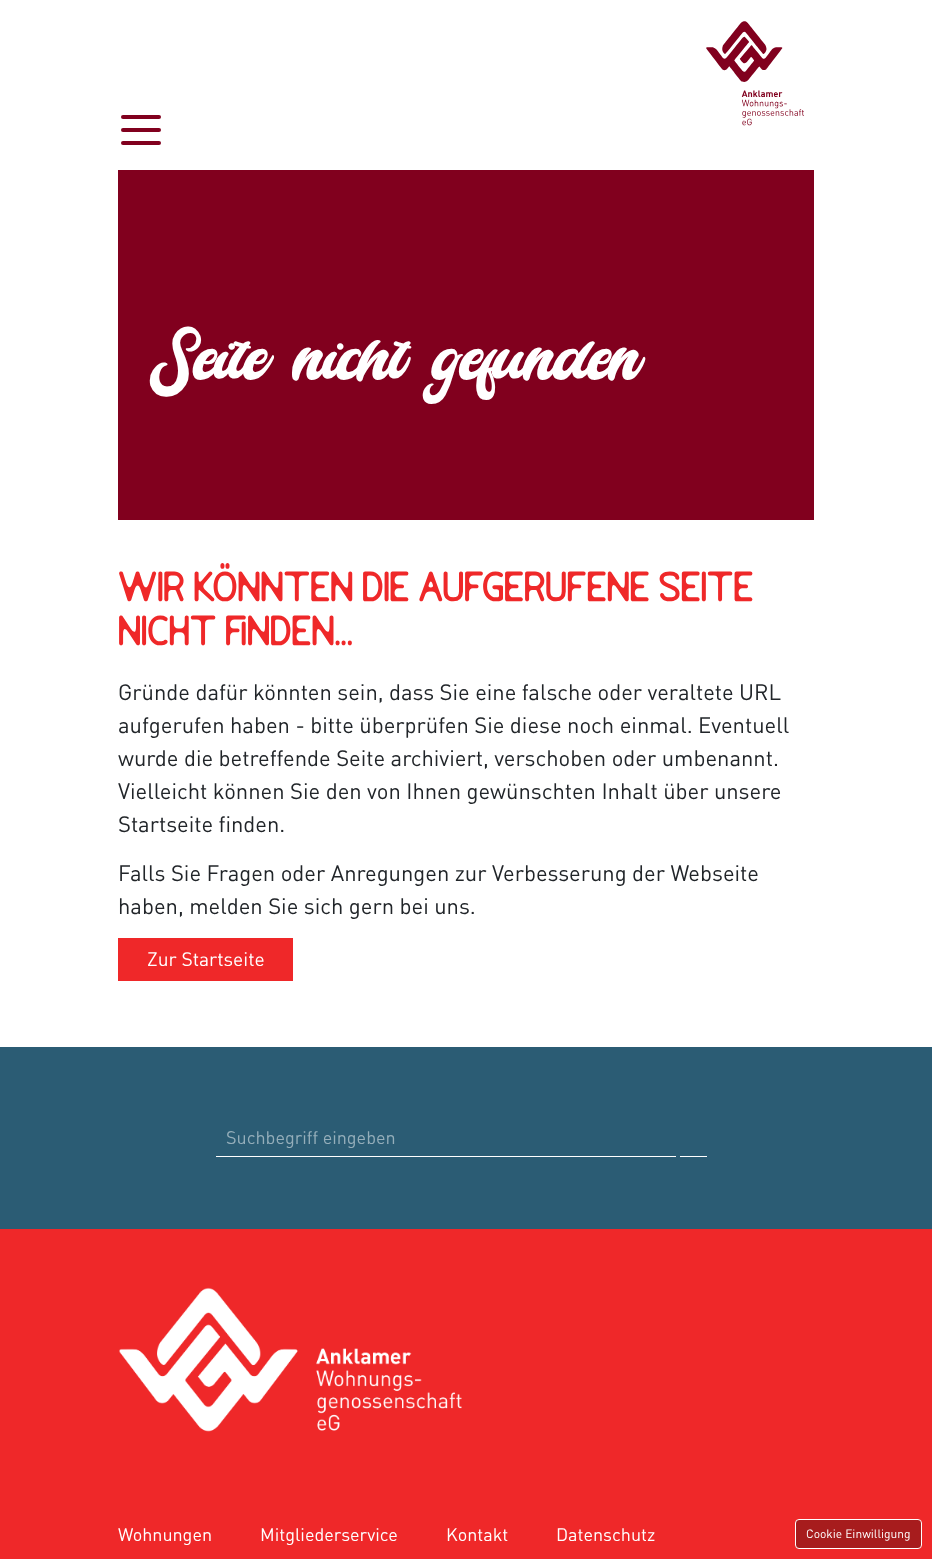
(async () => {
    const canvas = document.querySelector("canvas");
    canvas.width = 932;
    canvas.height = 1559;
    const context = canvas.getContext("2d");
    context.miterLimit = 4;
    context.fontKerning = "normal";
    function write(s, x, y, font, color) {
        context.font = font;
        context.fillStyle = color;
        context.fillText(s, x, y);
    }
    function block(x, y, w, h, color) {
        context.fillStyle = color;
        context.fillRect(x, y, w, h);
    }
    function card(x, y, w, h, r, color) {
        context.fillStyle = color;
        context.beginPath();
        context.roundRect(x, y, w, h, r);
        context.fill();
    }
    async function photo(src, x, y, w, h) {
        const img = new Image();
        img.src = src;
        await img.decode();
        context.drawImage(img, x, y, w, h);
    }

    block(0, 0, 932, 1559, "rgb(255, 255, 255)");
    await photo("media/1.png", 706, 21, 98, 105);
    card(121, 115, 40, 4, 2, "rgb(129, 0, 30)");
    card(121, 128, 40, 4, 2, "rgb(129, 0, 30)");
    card(121, 141, 40, 4, 2, "rgb(129, 0, 30)");
    block(118, 170, 696, 350, "rgb(129, 0, 30)");
    write("Seite nicht gefunden", 148, 380, "56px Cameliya", "rgb(255, 255, 255)");
    write("Wir könnten die aufgerufene Seite", 118, 600, "36.5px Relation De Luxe", "rgb(239, 40, 41)");
    write("nicht finden...", 118, 644, "36.5px Relation De Luxe", "rgb(239, 40, 41)");
    write("Gründe dafür könnten sein, dass Sie eine falsche oder veraltete URL", 118, 700, "22px DIN", "rgb(33, 37, 41)");
    write("aufgerufen haben - bitte überprüfen Sie diese noch einmal. Eventuell", 118, 733, "22px DIN", "rgb(33, 37, 41)");
    write("wurde die betreffende Seite archiviert, verschoben oder umbenannt.", 118, 766, "22px DIN", "rgb(33, 37, 41)");
    write("Vielleicht können Sie den von Ihnen gewünschten Inhalt über unsere", 118, 799, "22px DIN", "rgb(33, 37, 41)");
    write("Startseite finden.", 118, 832, "22px DIN", "rgb(33, 37, 41)");
    write("Falls Sie Fragen oder Anregungen zur Verbesserung der Webseite", 118, 881, "22px DIN", "rgb(33, 37, 41)");
    write("haben, melden Sie sich gern bei uns.", 118, 914, "22px DIN", "rgb(33, 37, 41)");
    block(118, 938, 175, 43, "rgb(239, 40, 41)");
    write("Zur Startseite", 147, 966, "19.25px DIN", "rgb(255, 255, 255)");
    block(0, 1047, 932, 182, "rgb(43, 92, 116)");
    block(216, 1156, 460, 1, "rgb(255, 255, 255)");
    write("Suchbegriff eingeben", 226, 1144, "18px DIN", "rgb(149, 174, 186)");
    block(680, 1156, 27, 1, "rgb(255, 255, 255)");
    block(0, 1229, 932, 330, "rgb(239, 40, 41)");
    await photo("media/2.png", 119, 1287, 343, 145);
    write("Wohnungen", 118, 1541, "18px DIN", "rgb(255, 255, 255)");
    write("Mitgliederservice", 260, 1541, "18px DIN", "rgb(255, 255, 255)");
    write("Kontakt", 446, 1541, "18px DIN", "rgb(255, 255, 255)");
    write("Datenschutz", 556, 1541, "18px DIN", "rgb(255, 255, 255)");
    context.fillStyle = "rgb(167, 28, 29)";
    context.beginPath();
    context.roundRect(795.5, 1519.5, 126, 29, 3.5);
    context.fill();
    context.strokeStyle = "rgb(255, 255, 255)";
    context.stroke();
    write("Cookie Einwilligung", 806, 1538, "12px DIN", "rgb(255, 255, 255)");
})();
